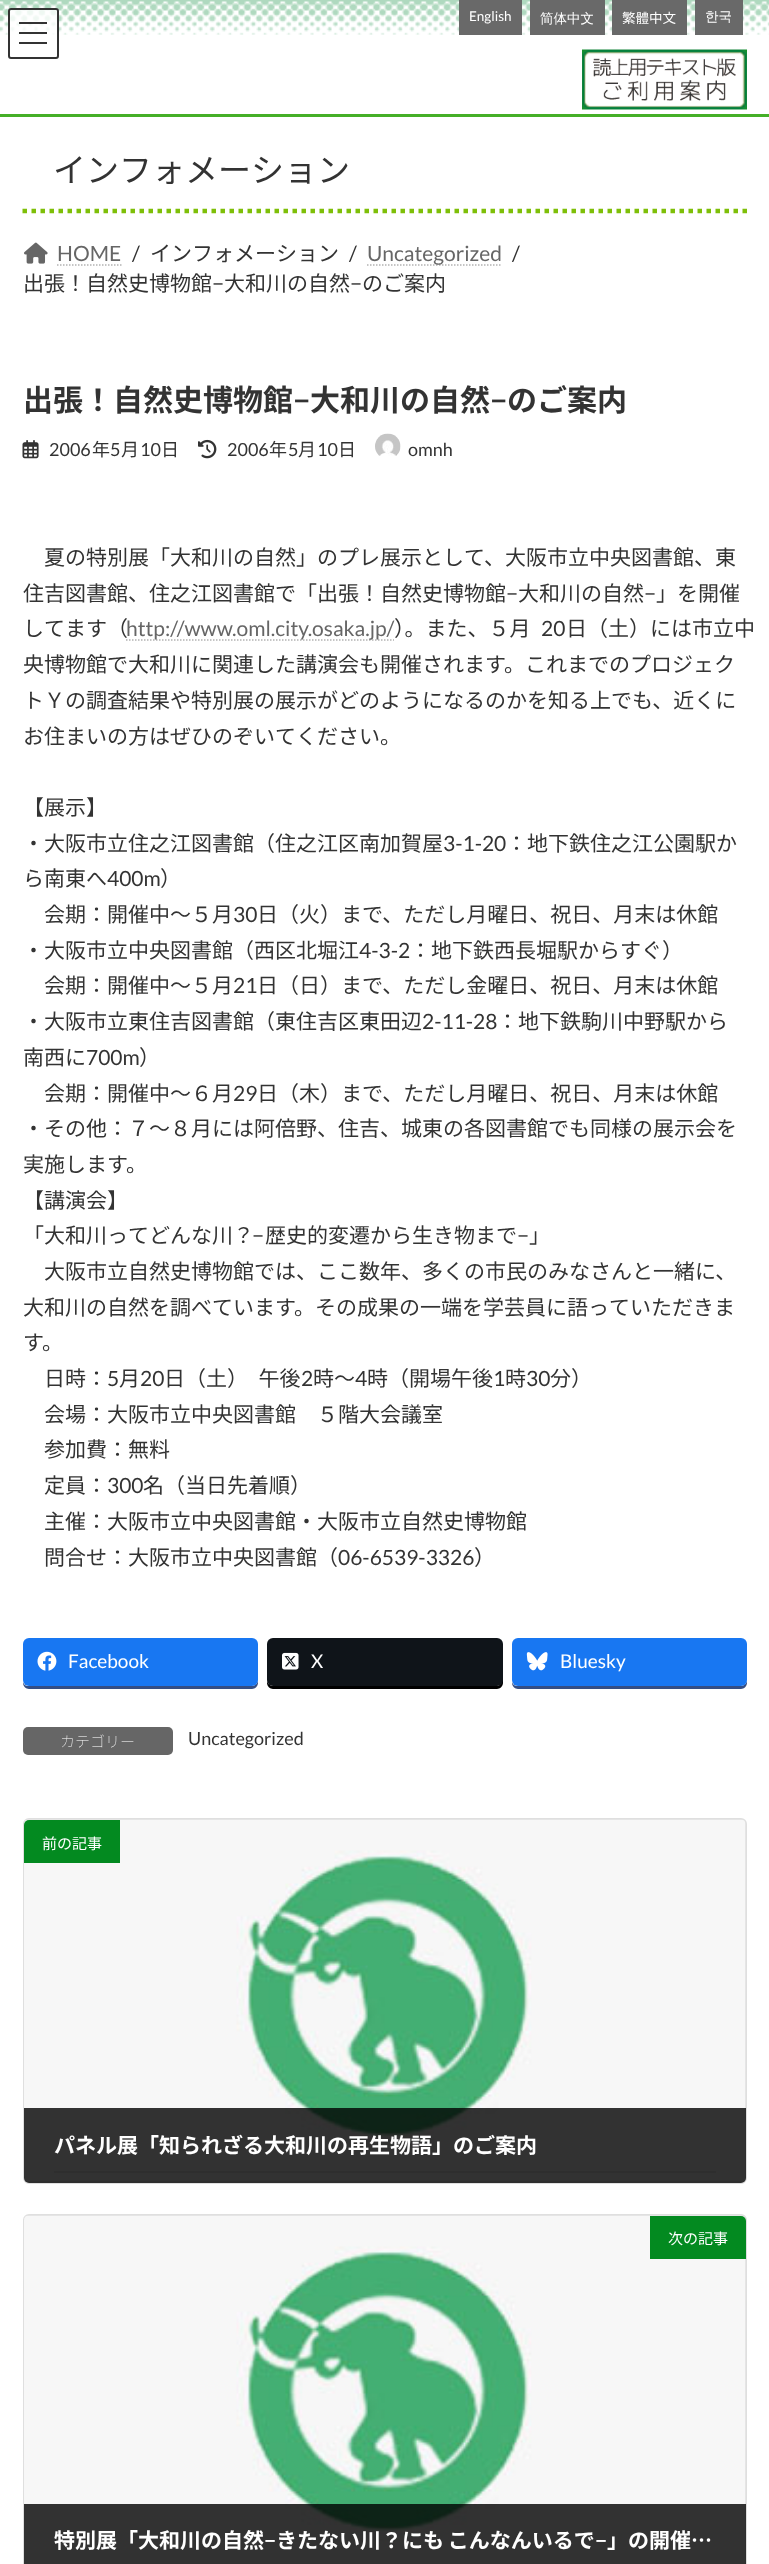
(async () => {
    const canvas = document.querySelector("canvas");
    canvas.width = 769;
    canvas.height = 2564;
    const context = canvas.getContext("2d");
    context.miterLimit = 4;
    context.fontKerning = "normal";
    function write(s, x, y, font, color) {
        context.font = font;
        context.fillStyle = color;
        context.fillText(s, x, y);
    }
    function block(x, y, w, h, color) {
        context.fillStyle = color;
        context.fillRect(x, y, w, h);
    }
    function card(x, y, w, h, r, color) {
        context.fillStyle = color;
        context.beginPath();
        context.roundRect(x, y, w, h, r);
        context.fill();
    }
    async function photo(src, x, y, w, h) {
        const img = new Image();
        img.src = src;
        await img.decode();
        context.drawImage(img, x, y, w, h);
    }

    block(0, 0, 769, 2564, "rgb(255, 255, 255)");
    await photo("media/1.png", 0, 0, 769, 35);
    card(8, 8, 51, 51, 3, "rgba(255, 255, 255, 0.8)");
    block(19, 22, 28, 2, "rgba(0, 0, 0, 0.8)");
    block(19, 32, 28, 2, "rgba(0, 0, 0, 0.8)");
    block(19, 42, 28, 2, "rgb(51, 51, 51)");
    context.beginPath();
    context.roundRect(9, 9, 49, 49, 2);
    context.strokeStyle = "rgb(51, 51, 51)";
    context.lineWidth = 2;
    context.stroke();
    block(459, 0, 63, 35, "rgb(105, 105, 105)");
    write("English", 469, 21, "13.5px Lato", "rgb(255, 255, 255)");
    block(530, 0, 75, 35, "rgb(105, 105, 105)");
    write("简体中文", 540, 23, "500 13.5px WenQuanYi Zen Hei", "rgb(255, 255, 255)");
    block(612, 0, 75, 35, "rgb(105, 105, 105)");
    write("繁體中文", 622, 23, "13.5px Noto Sans JP", "rgb(255, 255, 255)");
    block(695, 0, 48, 35, "rgb(105, 105, 105)");
    write("한국", 705, 21, "500 13.5px WenQuanYi Zen Hei", "rgb(255, 255, 255)");
    block(0, 114, 769, 3, "rgb(69, 175, 39)");
    await photo("media/2.png", 582, 49, 165, 61);
    context.beginPath();
    context.moveTo(22.5, 211);
    context.lineTo(747, 211);
    context.strokeStyle = "rgb(126, 191, 8)";
    context.lineWidth = 4.5;
    context.setLineDash([4.5, 4.5]);
    context.stroke();
    write("インフォメーション", 53, 182, "33px Noto Sans JP", "rgb(51, 51, 51)");
    await photo("media/3.png", 24, 242, 24, 22);
    write("HOME", 57, 261, "21px Lato", "rgb(102, 102, 102)");
    context.beginPath();
    context.moveTo(57, 265);
    context.lineTo(121.5, 265);
    context.strokeStyle = "rgb(179, 179, 179)";
    context.lineWidth = 1.5;
    context.setLineDash([1.5, 1.5]);
    context.stroke();
    write("/", 132, 261, "21px Lato", "rgb(51, 51, 51)");
    write("インフォメーション", 150, 261, "21px Noto Sans JP", "rgb(51, 51, 51)");
    write("/", 349, 261, "21px Lato", "rgb(51, 51, 51)");
    context.beginPath();
    context.moveTo(367, 265);
    context.lineTo(502, 265);
    context.stroke();
    write("Uncategorized", 367, 261, "21px Lato", "rgb(102, 102, 102)");
    write("/", 512, 261, "21px Lato", "rgb(51, 51, 51)");
    write("出張！自然史博物館", 23, 291, "21px Noto Sans JP", "rgb(51, 51, 51)");
    write("−", 212, 291, "21px Lato", "rgb(51, 51, 51)");
    write("大和川の自然", 224, 291, "21px Noto Sans JP", "rgb(51, 51, 51)");
    write("−", 350, 291, "21px Lato", "rgb(51, 51, 51)");
    write("のご案内", 362, 291, "21px Noto Sans JP", "rgb(51, 51, 51)");
    write("出張！自然史博物館", 23, 411, "bold 30px Noto Sans JP", "rgb(51, 51, 51)");
    write("−", 293, 411, "bold 30px Lato", "rgb(51, 51, 51)");
    write("大和川の自然", 310, 411, "bold 30px Noto Sans JP", "rgb(51, 51, 51)");
    write("−", 490, 411, "bold 30px Lato", "rgb(51, 51, 51)");
    write("のご案内", 507, 411, "bold 30px Noto Sans JP", "rgb(51, 51, 51)");
    await photo("media/4.png", 22, 440, 17, 19);
    write("2006", 49, 456, "18px Lato", "rgb(51, 51, 51)");
    write("年", 92, 456, "18px Noto Sans JP", "rgb(51, 51, 51)");
    write("5", 110, 456, "18px Lato", "rgb(51, 51, 51)");
    write("月", 121, 456, "18px Noto Sans JP", "rgb(51, 51, 51)");
    write("10", 140, 456, "18px Lato", "rgb(51, 51, 51)");
    write("日", 161, 456, "18px Noto Sans JP", "rgb(51, 51, 51)");
    await photo("media/5.png", 198, 439, 19, 20);
    write("2006", 227, 456, "18px Lato", "rgb(51, 51, 51)");
    write("年", 269, 456, "18px Noto Sans JP", "rgb(51, 51, 51)");
    write("5", 288, 456, "18px Lato", "rgb(51, 51, 51)");
    write("月", 298, 456, "18px Noto Sans JP", "rgb(51, 51, 51)");
    write("10", 317, 456, "18px Lato", "rgb(51, 51, 51)");
    write("日", 338, 456, "18px Noto Sans JP", "rgb(51, 51, 51)");
    await photo("media/6.png", 375, 433, 26, 23);
    write("omnh", 408, 456, "18px Lato", "rgb(51, 51, 51)");
    write("夏の特別展「大和川の自然」のプレ展示として、大阪市立中央図書館、東", 44, 565, "21px Noto Sans JP", "rgb(51, 51, 51)");
    write("住吉図書館、住之江図書館で「出張！自然史博物館", 23, 601, "21px Noto Sans JP", "rgb(51, 51, 51)");
    write("−", 506, 601, "21px Lato", "rgb(51, 51, 51)");
    write("大和川の自然", 518, 601, "21px Noto Sans JP", "rgb(51, 51, 51)");
    write("−", 644, 601, "21px Lato", "rgb(51, 51, 51)");
    write("」を開催", 656, 601, "21px Noto Sans JP", "rgb(51, 51, 51)");
    write("してます（", 23, 636, "21px Noto Sans JP", "rgb(51, 51, 51)");
    context.beginPath();
    context.moveTo(126, 640);
    context.lineTo(394, 640);
    context.stroke();
    write("http://www.oml.city.osaka.jp/", 126, 636, "21px Lato", "rgb(102, 102, 102)");
    write("）。また、５月", 394, 636, "21px Noto Sans JP", "rgb(51, 51, 51)");
    write("20", 541, 636, "21px Lato", "rgb(51, 51, 51)");
    write("日（土）には市立中", 566, 636, "21px Noto Sans JP", "rgb(51, 51, 51)");
    write("央博物館で大和川に関連した講演会も開催されます。これまでのプロジェク", 23, 672, "21px Noto Sans JP", "rgb(51, 51, 51)");
    write("トＹの調査結果や特別展の展示がどのようになるのかを知る上でも、近くに", 23, 708, "21px Noto Sans JP", "rgb(51, 51, 51)");
    write("お住まいの方はぜひのぞいてください。", 23, 744, "21px Noto Sans JP", "rgb(51, 51, 51)");
    write("【展示】", 23, 815, "21px Noto Sans JP", "rgb(51, 51, 51)");
    write("・大阪市立住之江図書館（住之江区南加賀屋", 23, 851, "21px Noto Sans JP", "rgb(51, 51, 51)");
    write("3-1-20", 443, 851, "21px Lato", "rgb(51, 51, 51)");
    write("：地下鉄住之江公園駅か", 506, 851, "21px Noto Sans JP", "rgb(51, 51, 51)");
    write("ら南東へ", 23, 886, "21px Noto Sans JP", "rgb(51, 51, 51)");
    write("400m", 107, 886, "21px Lato", "rgb(51, 51, 51)");
    write("）", 160, 886, "21px Noto Sans JP", "rgb(51, 51, 51)");
    write("会期：開催中〜５月", 44, 922, "21px Noto Sans JP", "rgb(51, 51, 51)");
    write("30", 233, 922, "21px Lato", "rgb(51, 51, 51)");
    write("日（火）まで、ただし月曜日、祝日、月末は休館", 257, 922, "21px Noto Sans JP", "rgb(51, 51, 51)");
    write("・大阪市立中央図書館（西区北堀江", 23, 958, "21px Noto Sans JP", "rgb(51, 51, 51)");
    write("4-3-2", 359, 958, "21px Lato", "rgb(51, 51, 51)");
    write("：地下鉄西長堀駅からすぐ）", 410, 958, "21px Noto Sans JP", "rgb(51, 51, 51)");
    write("会期：開催中〜５月", 44, 993, "21px Noto Sans JP", "rgb(51, 51, 51)");
    write("21", 233, 993, "21px Lato", "rgb(51, 51, 51)");
    write("日（日）まで、ただし金曜日、祝日、月末は休館", 257, 993, "21px Noto Sans JP", "rgb(51, 51, 51)");
    write("・大阪市立東住吉図書館（東住吉区東田辺", 23, 1029, "21px Noto Sans JP", "rgb(51, 51, 51)");
    write("2-11-28", 422, 1029, "21px Lato", "rgb(51, 51, 51)");
    write("：地下鉄駒川中野駅から", 497, 1029, "21px Noto Sans JP", "rgb(51, 51, 51)");
    write("南西に", 23, 1065, "21px Noto Sans JP", "rgb(51, 51, 51)");
    write("700m", 86, 1065, "21px Lato", "rgb(51, 51, 51)");
    write("）", 139, 1065, "21px Noto Sans JP", "rgb(51, 51, 51)");
    write("会期：開催中〜６月", 44, 1101, "21px Noto Sans JP", "rgb(51, 51, 51)");
    write("29", 233, 1101, "21px Lato", "rgb(51, 51, 51)");
    write("日（木）まで、ただし月曜日、祝日、月末は休館", 257, 1101, "21px Noto Sans JP", "rgb(51, 51, 51)");
    write("・その他：７〜８月には阿倍野、住吉、城東の各図書館でも同様の展示会を", 23, 1136, "21px Noto Sans JP", "rgb(51, 51, 51)");
    write("実施します。", 23, 1172, "21px Noto Sans JP", "rgb(51, 51, 51)");
    write("【講演会】", 23, 1208, "21px Noto Sans JP", "rgb(51, 51, 51)");
    write("「大和川ってどんな川？", 23, 1243, "21px Noto Sans JP", "rgb(51, 51, 51)");
    write("−", 252, 1243, "21px Lato", "rgb(51, 51, 51)");
    write("歴史的変遷から生き物まで", 265, 1243, "21px Noto Sans JP", "rgb(51, 51, 51)");
    write("−", 517, 1243, "21px Lato", "rgb(51, 51, 51)");
    write("」", 529, 1243, "21px Noto Sans JP", "rgb(51, 51, 51)");
    write("大阪市立自然史博物館では、ここ数年、多くの市民のみなさんと一緒に、", 44, 1279, "21px Noto Sans JP", "rgb(51, 51, 51)");
    write("大和川の自然を調べています。その成果の一端を学芸員に語っていただきま", 23, 1315, "21px Noto Sans JP", "rgb(51, 51, 51)");
    write("す。", 23, 1350, "21px Noto Sans JP", "rgb(51, 51, 51)");
    write("日時：", 44, 1386, "21px Noto Sans JP", "rgb(51, 51, 51)");
    write("5", 107, 1386, "21px Lato", "rgb(51, 51, 51)");
    write("月", 119, 1386, "21px Noto Sans JP", "rgb(51, 51, 51)");
    write("20", 140, 1386, "21px Lato", "rgb(51, 51, 51)");
    write("日（土）　午後", 164, 1386, "21px Noto Sans JP", "rgb(51, 51, 51)");
    write("2", 301, 1386, "21px Lato", "rgb(51, 51, 51)");
    write("時〜", 313, 1386, "21px Noto Sans JP", "rgb(51, 51, 51)");
    write("4", 355, 1386, "21px Lato", "rgb(51, 51, 51)");
    write("時（開場午後", 367, 1386, "21px Noto Sans JP", "rgb(51, 51, 51)");
    write("1", 493, 1386, "21px Lato", "rgb(51, 51, 51)");
    write("時", 505, 1386, "21px Noto Sans JP", "rgb(51, 51, 51)");
    write("30", 526, 1386, "21px Lato", "rgb(51, 51, 51)");
    write("分）", 550, 1386, "21px Noto Sans JP", "rgb(51, 51, 51)");
    write("会場：大阪市立中央図書館　５階大会議室", 44, 1422, "21px Noto Sans JP", "rgb(51, 51, 51)");
    write("参加費：無料", 44, 1457, "21px Noto Sans JP", "rgb(51, 51, 51)");
    write("定員：", 44, 1493, "21px Noto Sans JP", "rgb(51, 51, 51)");
    write("300", 107, 1493, "21px Lato", "rgb(51, 51, 51)");
    write("名（当日先着順）", 143, 1493, "21px Noto Sans JP", "rgb(51, 51, 51)");
    write("主催：大阪市立中央図書館・大阪市立自然史博物館", 44, 1529, "21px Noto Sans JP", "rgb(51, 51, 51)");
    write("問合せ：大阪市立中央図書館（", 44, 1565, "21px Noto Sans JP", "rgb(51, 51, 51)");
    write("06-6539-3326", 338, 1565, "21px Lato", "rgb(51, 51, 51)");
    write("）", 474, 1565, "21px Noto Sans JP", "rgb(51, 51, 51)");
    context.fillStyle = "rgb(52, 78, 132)";
    context.beginPath();
    context.moveTo(23, 1682);
    context.lineTo(23, 1683);
    context.bezierCurveTo(23, 1686, 26, 1689, 29, 1689);
    context.lineTo(252, 1689);
    context.bezierCurveTo(255, 1689, 258, 1686, 258, 1683);
    context.lineTo(258, 1680);
    context.bezierCurveTo(258, 1683, 255, 1686, 252, 1686);
    context.lineTo(28, 1686);
    context.bezierCurveTo(26, 1686, 24, 1685, 23, 1682);
    context.closePath();
    context.fill();
    card(23, 1638, 235, 48, 6, "rgb(24, 119, 242)");
    await photo("media/7.png", 37, 1651, 20, 20);
    write("Facebook", 68, 1668, "19px Lato", "rgb(255, 255, 255)");
    context.fillStyle = "rgb(0, 0, 0)";
    context.beginPath();
    context.moveTo(267, 1680);
    context.lineTo(267, 1683);
    context.bezierCurveTo(267, 1686, 270, 1689, 273, 1689);
    context.lineTo(497, 1689);
    context.bezierCurveTo(500, 1689, 503, 1686, 503, 1683);
    context.lineTo(503, 1647);
    context.lineTo(502, 1645);
    context.lineTo(502, 1680);
    context.bezierCurveTo(502, 1683, 500, 1686, 496, 1686);
    context.lineTo(273, 1686);
    context.bezierCurveTo(270, 1686, 267, 1683, 267, 1680);
    context.closePath();
    context.fill();
    card(267, 1638, 236, 48, 6, "rgb(15, 20, 25)");
    await photo("media/8.png", 282, 1652, 17, 18);
    write("X", 311, 1668, "19px Lato", "rgb(255, 255, 255)");
    context.fillStyle = "rgb(52, 78, 132)";
    context.beginPath();
    context.moveTo(512, 1682);
    context.lineTo(512, 1683);
    context.bezierCurveTo(512, 1686, 515, 1689, 518, 1689);
    context.lineTo(741, 1689);
    context.bezierCurveTo(744, 1689, 747, 1686, 747, 1683);
    context.lineTo(747, 1680);
    context.bezierCurveTo(747, 1683, 744, 1686, 741, 1686);
    context.lineTo(518, 1686);
    context.bezierCurveTo(515, 1686, 513, 1685, 512, 1682);
    context.closePath();
    context.fill();
    card(512, 1638, 235, 48, 6, "rgb(24, 119, 242)");
    await photo("media/9.png", 526, 1652, 22, 19);
    write("Bluesky", 560, 1668, "19px Lato", "rgb(255, 255, 255)");
    card(23, 1727, 150, 28, 5, "rgb(102, 102, 102)");
    write("カテゴリー", 60, 1747, "100 15px Noto Sans JP", "rgb(255, 255, 255)");
    write("Uncategorized", 188, 1745, "18px Lato", "rgb(51, 51, 51)");
    context.beginPath();
    context.roundRect(24, 1819, 722, 364, 5);
    context.strokeStyle = "rgb(223, 223, 223)";
    context.lineWidth = 2;
    context.setLineDash([]);
    context.stroke();
    await photo("media/10.png", 24, 1819, 722, 364);
    context.save();
    context.beginPath();
    context.roundRect(24, 1820, 722, 363, 5);
    context.clip();
    block(24, 2181, 722, 2, "rgb(229, 229, 229)");
    context.restore();
    context.fillStyle = "rgb(3, 138, 32)";
    context.beginPath();
    context.roundRect(24, 1820, 96, 43, [5, 0, 0, 0]);
    context.fill();
    write("前の記事", 42, 1849, "15px Noto Sans JP", "rgb(255, 255, 255)");
    context.fillStyle = "rgba(0, 0, 0, 0.8)";
    context.beginPath();
    context.roundRect(24, 2108, 722, 75, [0, 0, 5, 5]);
    context.fill();
    block(54, 2171, 662, 2, "rgb(46, 46, 46)");
    write("パネル展「知られざる大和川の再生物語」のご案内", 54, 2153, "bold 21px Noto Sans JP", "rgb(255, 255, 255)");
    context.beginPath();
    context.roundRect(24, 2215, 722, 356, 5);
    context.stroke();
    await photo("media/11.png", 24, 2215, 722, 349);
    context.fillStyle = "rgb(3, 138, 32)";
    context.beginPath();
    context.roundRect(650, 2216, 96, 43, [0, 5, 0, 0]);
    context.fill();
    write("次の記事", 668, 2244, "15px Noto Sans JP", "rgb(255, 255, 255)");
    block(24, 2504, 722, 60, "rgba(0, 0, 0, 0.8)");
    write("特別展「大和川の自然", 54, 2548, "bold 21px Noto Sans JP", "rgb(255, 255, 255)");
    write("−", 264, 2548, "bold 21px Lato", "rgb(255, 255, 255)");
    context.wordSpacing = "-1px";
    write("きたない川？にも こんなんいるで", 276, 2548, "bold 21px Noto Sans JP", "rgb(255, 255, 255)");
    context.wordSpacing = "0px";
    write("−", 595, 2548, "bold 21px Lato", "rgb(255, 255, 255)");
    write("」の開催…", 607, 2548, "bold 21px Noto Sans JP", "rgb(255, 255, 255)");
})();
